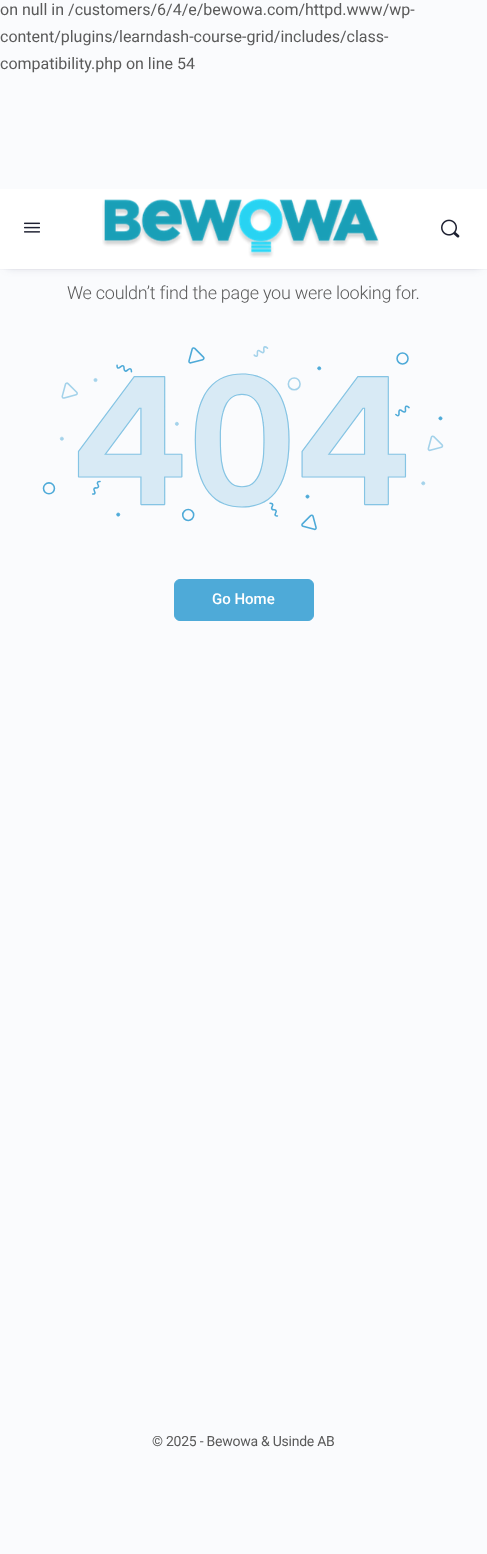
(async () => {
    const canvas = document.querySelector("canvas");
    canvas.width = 487;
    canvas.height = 1554;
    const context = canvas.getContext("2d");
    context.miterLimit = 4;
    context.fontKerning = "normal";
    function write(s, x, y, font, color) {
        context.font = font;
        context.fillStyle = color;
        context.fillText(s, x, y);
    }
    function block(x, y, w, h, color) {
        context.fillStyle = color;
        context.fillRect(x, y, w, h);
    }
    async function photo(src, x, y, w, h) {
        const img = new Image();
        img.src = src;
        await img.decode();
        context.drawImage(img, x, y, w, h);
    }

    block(0, 0, 487, 1554, "rgb(250, 251, 253)");
    write("on null in /customers/6/4/e/bewowa.com/httpd.www/wp-", 0, 15, "16px Roboto", "rgb(90, 90, 90)");
    write("content/plugins/learndash-course-grid/includes/class-", 0, 42, "16px Roboto", "rgb(90, 90, 90)");
    write("compatibility.php on line 54", 0, 69, "16px Roboto", "rgb(90, 90, 90)");
    context.fillStyle = "rgba(65, 71, 108, 0.25)";
    context.filter = "blur(5px)";
    context.beginPath();
    context.rect(7, 201, 473, 66);
    context.fill();
    context.filter = "none";
    block(0, 269, 487, 1, "rgba(139, 141, 157, 0.05)");
    block(0, 189, 487, 80, "rgb(255, 255, 255)");
    await photo("media/1.png", 24, 222, 16, 11);
    await photo("media/2.png", 102, 198, 277, 60);
    await photo("media/3.png", 441, 219, 19, 19);
    context.letterSpacing = "-0.25px";
    write("We couldn’t find the page you were looking for.", 67, 299, "300 18px Roboto", "rgb(90, 90, 90)");
    await photo("media/4.png", 42, 346, 402, 185);
    context.fillStyle = "rgb(78, 170, 216)";
    context.beginPath();
    context.roundRect(174.5, 579.5, 139, 41, 5.5);
    context.fill();
    context.strokeStyle = "rgb(78, 170, 216)";
    context.stroke();
    context.letterSpacing = "0px";
    write("Go Home", 212, 604, "500 15px Roboto", "rgb(255, 255, 255)");
    context.letterSpacing = "-0.25px";
    write("© 2025 - Bewowa & Usinde AB", 152, 1446, "14px Roboto", "rgb(90, 90, 90)");
})();
